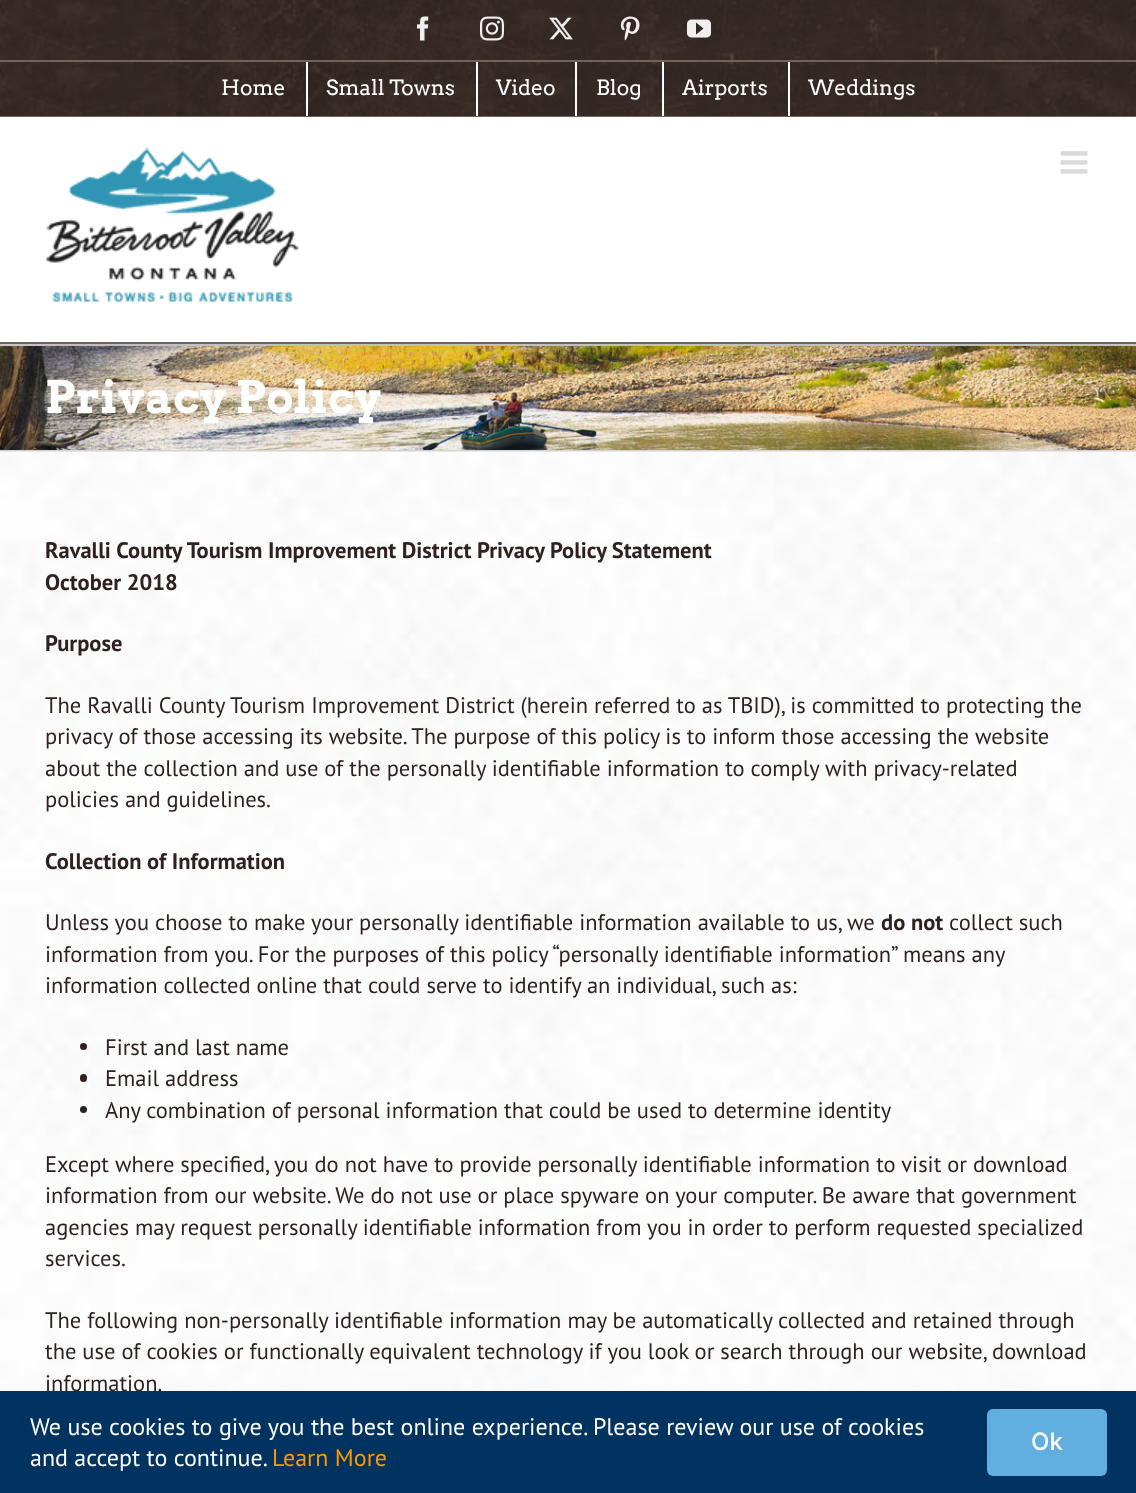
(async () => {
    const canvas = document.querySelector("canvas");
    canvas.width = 1136;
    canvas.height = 1493;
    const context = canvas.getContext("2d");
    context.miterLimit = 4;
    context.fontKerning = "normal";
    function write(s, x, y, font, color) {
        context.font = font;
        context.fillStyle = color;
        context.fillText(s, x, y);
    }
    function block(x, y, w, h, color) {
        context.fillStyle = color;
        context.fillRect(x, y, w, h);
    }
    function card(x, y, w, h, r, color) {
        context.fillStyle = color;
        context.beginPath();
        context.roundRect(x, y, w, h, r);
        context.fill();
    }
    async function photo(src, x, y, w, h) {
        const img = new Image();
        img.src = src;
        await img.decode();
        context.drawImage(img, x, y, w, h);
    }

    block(0, 0, 1136, 1493, "rgb(255, 255, 255)");
    await photo("media/9.png", 0, 346, 1136, 104);
    block(0, 344, 1136, 2, "rgb(210, 211, 212)");
    block(0, 450, 1136, 2, "rgb(210, 211, 212)");
    await photo("media/10.png", 0, 451, 1136, 940);
    context.fillStyle = "rgba(0, 0, 0, 0.14)";
    context.filter = "blur(37.5px)";
    context.beginPath();
    context.rect(3, 18, 1131, 338);
    context.fill();
    context.filter = "none";
    await photo("media/1.png", 0, 0, 1136, 116);
    block(0, 116, 1136, 1, "rgb(112, 100, 90)");
    block(0, 60, 1136, 2, "rgb(112, 100, 90)");
    await photo("media/2.png", 417, 16, 12, 25);
    await photo("media/3.png", 480, 16, 24, 25);
    await photo("media/4.png", 549, 17, 24, 23);
    await photo("media/5.png", 620, 16, 20, 25);
    await photo("media/6.png", 687, 19, 24, 19);
    write("Home", 221, 95, "21px Arvo", "rgb(255, 255, 255)");
    block(306, 62, 2, 54, "rgb(255, 255, 255)");
    write("Small Towns", 326, 95, "21px Arvo", "rgb(255, 255, 255)");
    block(476, 62, 2, 54, "rgb(255, 255, 255)");
    write("Video", 496, 95, "21px Arvo", "rgb(255, 255, 255)");
    block(575, 62, 2, 54, "rgb(255, 255, 255)");
    write("Blog", 596, 95, "21px Arvo", "rgb(255, 255, 255)");
    block(662, 62, 2, 54, "rgb(255, 255, 255)");
    write("Airports", 682, 95, "21px Arvo", "rgb(255, 255, 255)");
    block(788, 62, 2, 54, "rgb(255, 255, 255)");
    write("Weddings", 808, 95, "21px Arvo", "rgb(255, 255, 255)");
    block(0, 117, 1136, 225, "rgb(255, 255, 255)");
    block(0, 342, 1136, 2, "rgb(112, 100, 90)");
    await photo("media/7.png", 46, 147, 253, 155);
    await photo("media/8.png", 1060, 151, 28, 23);
    write("Privacy Policy", 45, 413, "bold 45px Arvo", "rgb(255, 255, 255)");
    write("Ravalli County Tourism Improvement District Privacy Policy Statement", 45, 558, "bold 22.5px PT Sans", "rgb(46, 33, 31)");
    write("October 2018", 45, 590, "bold 22.5px PT Sans", "rgb(46, 33, 31)");
    write("Purpose", 45, 651, "bold 22.5px PT Sans", "rgb(46, 33, 31)");
    write("The Ravalli County Tourism Improvement District (herein referred to as TBID), is committed to protecting the", 45, 713, "22.5px PT Sans", "rgb(46, 33, 31)");
    write("privacy of those accessing its website. The purpose of this policy is to inform those accessing the website", 45, 744, "22.5px PT Sans", "rgb(46, 33, 31)");
    write("about the collection and use of the personally identifiable information to comply with privacy-related", 45, 776, "22.5px PT Sans", "rgb(46, 33, 31)");
    write("policies and guidelines.", 45, 807, "22.5px PT Sans", "rgb(46, 33, 31)");
    write("Collection of Information", 45, 869, "bold 22.5px PT Sans", "rgb(46, 33, 31)");
    write("Unless you choose to make your personally identifiable information available to us, we", 45, 930, "22.5px PT Sans", "rgb(46, 33, 31)");
    write("do not", 881, 930, "bold 22.5px PT Sans", "rgb(46, 33, 31)");
    write("collect such", 949, 930, "22.5px PT Sans", "rgb(46, 33, 31)");
    write("information from you. For the purposes of this policy “personally identifiable information” means any", 45, 962, "22.5px PT Sans", "rgb(46, 33, 31)");
    write("information collected online that could serve to identify an individual, such as:", 45, 993, "22.5px PT Sans", "rgb(46, 33, 31)");
    context.beginPath();
    context.arc(83.5, 1046.5, 3.5, 0, Math.PI * 2);
    context.fill();
    write("First and last name", 105, 1055, "22.5px PT Sans", "rgb(46, 33, 31)");
    card(80, 1074, 7, 8, 3.5, "rgb(46, 33, 31)");
    write("Email address", 105, 1086, "22.5px PT Sans", "rgb(46, 33, 31)");
    context.beginPath();
    context.arc(83.5, 1109.5, 3.5, 0, Math.PI * 2);
    context.fill();
    write("Any combination of personal information that could be used to determine identity", 105, 1118, "22.5px PT Sans", "rgb(46, 33, 31)");
    write("Except where specified, you do not have to provide personally identifiable information to visit or download", 45, 1172, "22.5px PT Sans", "rgb(46, 33, 31)");
    write("information from our website. We do not use or place spyware on your computer. Be aware that government", 45, 1203, "22.5px PT Sans", "rgb(46, 33, 31)");
    write("agencies may request personally identifiable information from you in order to perform requested specialized", 45, 1235, "22.5px PT Sans", "rgb(46, 33, 31)");
    write("services.", 45, 1266, "22.5px PT Sans", "rgb(46, 33, 31)");
    write("The following non-personally identifiable information may be automatically collected and retained through", 45, 1328, "22.5px PT Sans", "rgb(46, 33, 31)");
    write("the use of cookies or functionally equivalent technology if you look or search through our website, download", 45, 1359, "22.5px PT Sans", "rgb(46, 33, 31)");
    write("information.", 45, 1391, "22.5px PT Sans", "rgb(46, 33, 31)");
    block(0, 1391, 1136, 102, "rgb(0, 51, 96)");
    write("We use cookies to give you the best online experience. Please review our use of cookies", 30, 1435, "24px PT Sans", "rgb(255, 255, 255)");
    write("and accept to continue.", 30, 1466, "24px PT Sans", "rgb(255, 255, 255)");
    write("Learn More", 272, 1466, "24px PT Sans", "rgb(255, 152, 0)");
    card(987, 1409, 120, 67, 6, "rgb(96, 175, 224)");
    write("Ok", 1031, 1450, "500 24px Inter", "rgb(255, 255, 255)");
})();
